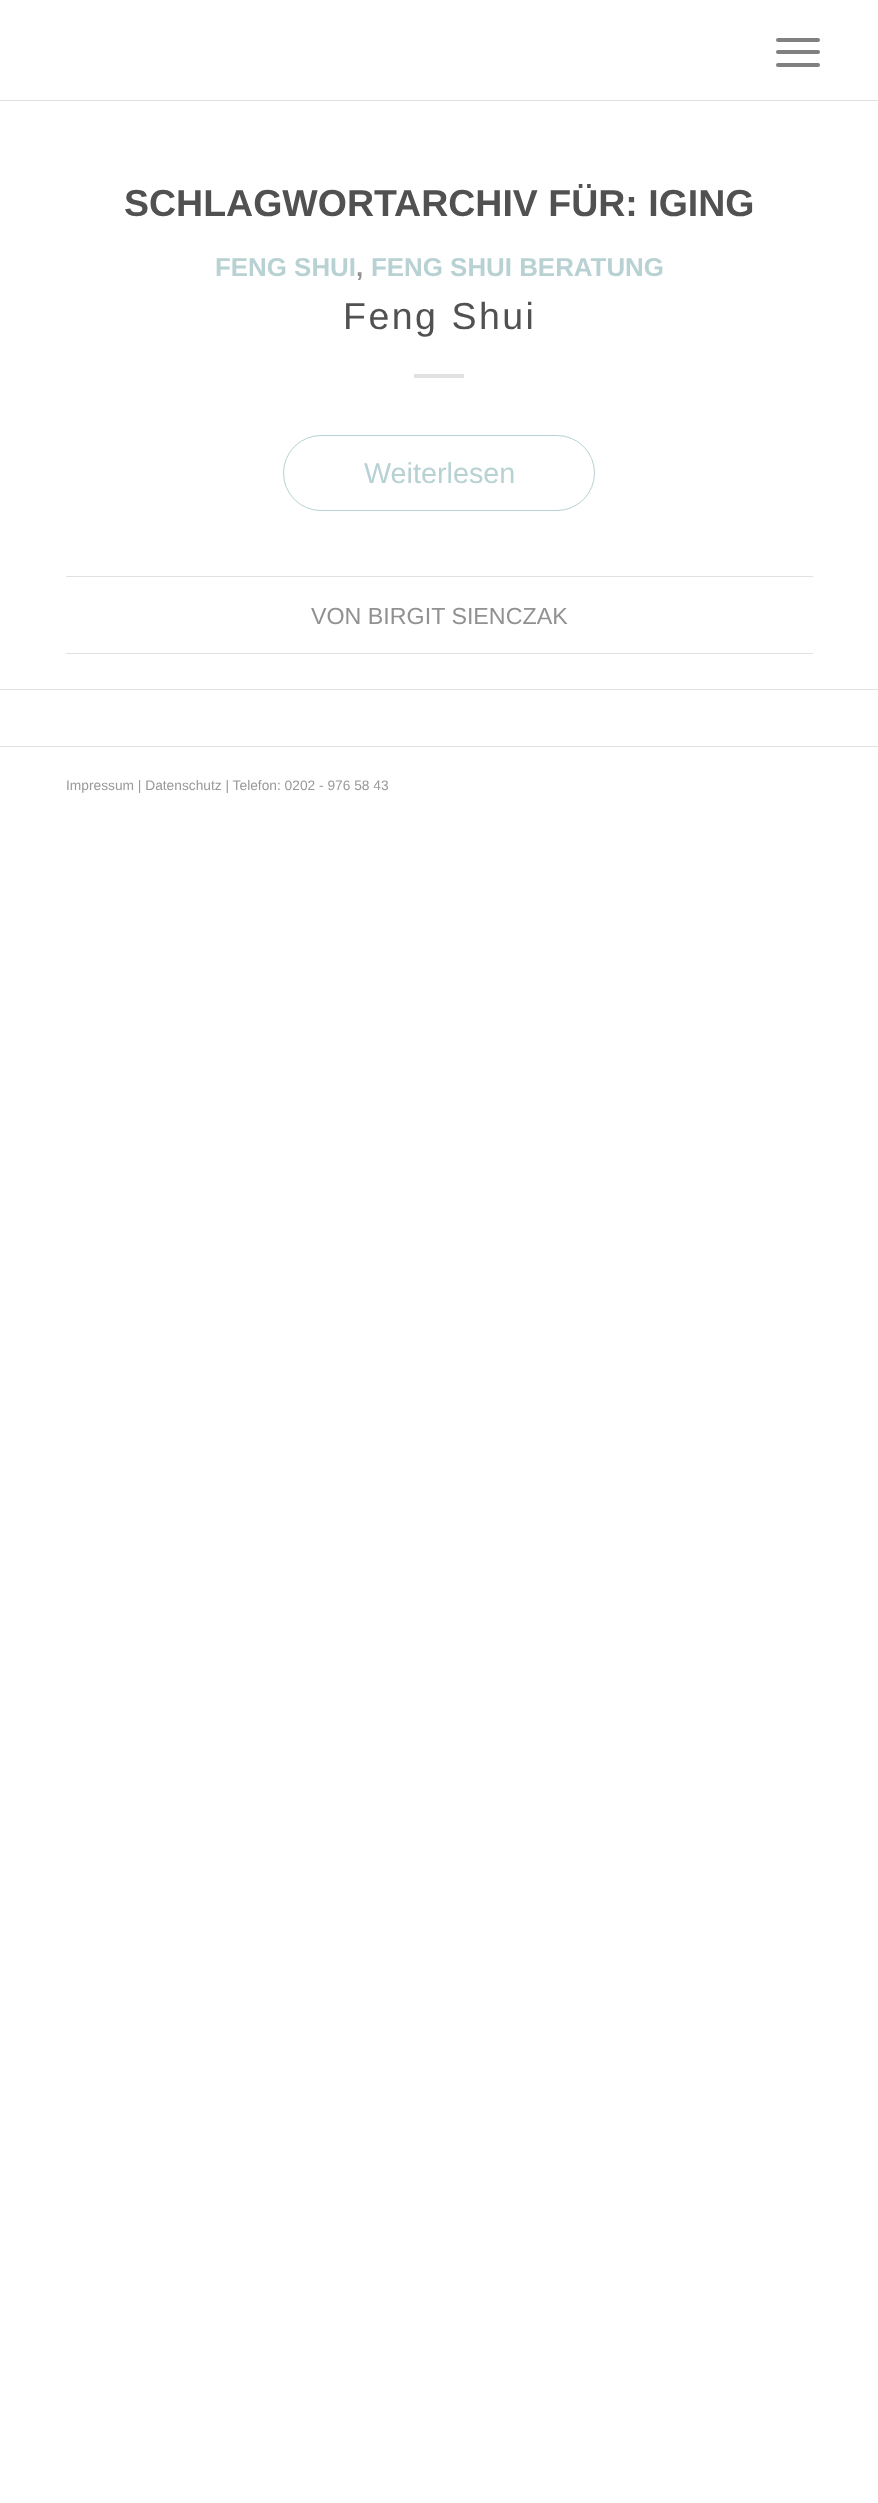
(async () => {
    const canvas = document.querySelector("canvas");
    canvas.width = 878;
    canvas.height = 2503;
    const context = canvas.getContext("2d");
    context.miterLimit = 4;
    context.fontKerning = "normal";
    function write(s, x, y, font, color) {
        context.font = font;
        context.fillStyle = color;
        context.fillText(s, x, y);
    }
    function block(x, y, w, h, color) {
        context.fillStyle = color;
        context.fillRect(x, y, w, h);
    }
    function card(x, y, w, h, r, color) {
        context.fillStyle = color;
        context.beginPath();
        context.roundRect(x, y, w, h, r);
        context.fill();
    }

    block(0, 0, 878, 2503, "rgb(255, 255, 255)");
    block(0, 100, 878, 1, "rgb(225, 225, 225)");
    card(776, 50, 44, 4, 2, "rgb(128, 128, 128)");
    card(776, 38, 44, 4, 2, "rgb(128, 128, 128)");
    card(776, 63, 44, 4, 2, "rgb(128, 128, 128)");
    write("SCHLAGWORTARCHIV FÜR: IGING", 124, 216, "bold 37.5px Liberation Sans", "rgb(81, 81, 81)");
    write("FENG SHUI", 215, 276, "bold 25.9px Liberation Sans", "rgb(184, 209, 211)");
    write(",", 356, 276, "bold 25.9px Liberation Sans", "rgb(145, 145, 145)");
    write("FENG SHUI BERATUNG", 371, 276, "bold 25.9px Liberation Sans", "rgb(184, 209, 211)");
    context.letterSpacing = "2.5px";
    write("Feng Shui", 343, 329, "37.5px Liberation Sans", "rgb(81, 81, 81)");
    block(414, 374, 50, 4, "rgb(225, 225, 225)");
    context.beginPath();
    context.roundRect(283.5, 435.5, 311, 75, 37.5);
    context.strokeStyle = "rgb(184, 209, 211)";
    context.stroke();
    context.letterSpacing = "0px";
    write("Weiterlesen", 364, 483, "28.75px Liberation Sans", "rgb(184, 209, 211)");
    block(66, 576, 747, 1, "rgb(225, 225, 225)");
    block(66, 653, 747, 1, "rgb(225, 225, 225)");
    write("VON BIRGIT SIENCZAK", 311, 624, "23.25px Liberation Sans", "rgb(145, 145, 145)");
    block(0, 689, 878, 1, "rgb(225, 225, 225)");
    block(0, 746, 878, 1, "rgb(225, 225, 225)");
    write("Impressum | Datenschutz | Telefon: 0202 - 976 58 43", 66, 790, "13.75px Liberation Sans", "rgb(153, 153, 153)");
})();
